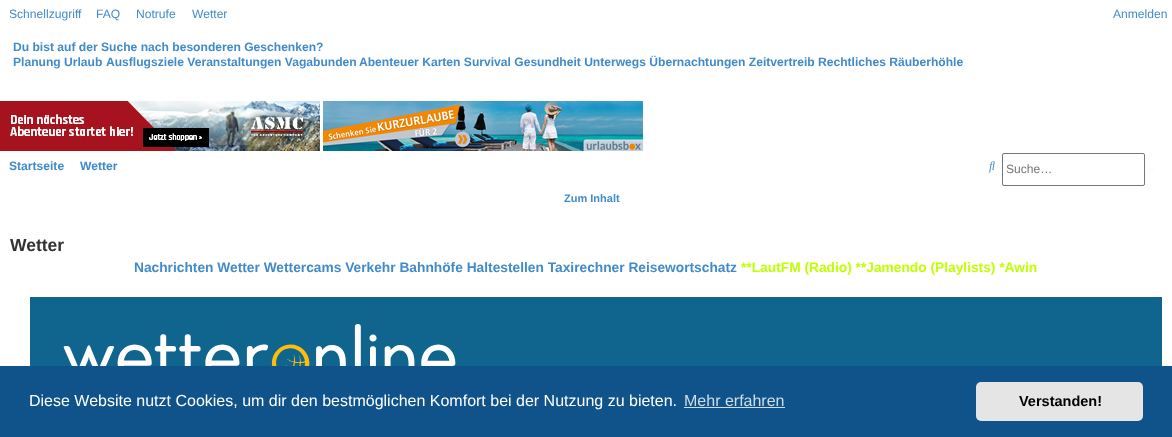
(async () => {
    const canvas = document.querySelector("canvas");
    canvas.width = 1172;
    canvas.height = 437;
    const context = canvas.getContext("2d");
    context.miterLimit = 4;
    context.fontKerning = "normal";
    function write(s, x, y, font, color) {
        context.font = font;
        context.fillStyle = color;
        context.fillText(s, x, y);
    }
    function block(x, y, w, h, color) {
        context.fillStyle = color;
        context.fillRect(x, y, w, h);
    }
    function card(x, y, w, h, r, color) {
        context.fillStyle = color;
        context.beginPath();
        context.roundRect(x, y, w, h, r);
        context.fill();
    }
    async function photo(src, x, y, w, h) {
        const img = new Image();
        img.src = src;
        await img.decode();
        context.drawImage(img, x, y, w, h);
    }

    block(0, 0, 1172, 437, "rgb(255, 255, 255)");
    write("Schnellzugriff", 9, 18, "12.1px Liberation Sans", "rgb(66, 139, 202)");
    write("FAQ", 96, 18, "12.1px Liberation Sans", "rgb(66, 139, 202)");
    write("Notrufe", 136, 18, "12.1px Liberation Sans", "rgb(66, 139, 202)");
    write("Wetter", 192, 18, "12.1px Liberation Sans", "rgb(66, 139, 202)");
    write("Anmelden", 1113, 18, "12.1px Liberation Sans", "rgb(66, 139, 202)");
    write("Du bist auf der Suche nach besonderen Geschenken?", 13, 51, "bold 12.1px Liberation Sans", "rgb(66, 139, 202)");
    write("Planung Urlaub", 13, 66, "bold 12.1px Liberation Sans", "rgb(66, 139, 202)");
    write("Ausflugsziele Veranstaltungen Vagabunden", 106, 66, "bold 12.1px Liberation Sans", "rgb(66, 139, 202)");
    write("Abenteuer Karten Survival Gesundheit Unterwegs Übernachtungen Zeitvertreib Rechtliches Räuberhöhle", 359, 66, "bold 12.1px Liberation Sans", "rgb(66, 139, 202)");
    await photo("media/1.png", 0, 101, 320, 50);
    await photo("media/2.png", 323, 101, 320, 50);
    write("Startseite", 9, 170, "bold 12.1px Liberation Sans", "rgb(66, 139, 202)");
    write("Wetter", 80, 170, "bold 12.1px Liberation Sans", "rgb(66, 139, 202)");
    await photo("media/3.png", 989, 161, 6, 12);
    context.beginPath();
    context.roundRect(1002.5, 153.5, 142, 32, 1.5);
    context.strokeStyle = "rgb(118, 118, 118)";
    context.stroke();
    write("Suche…", 1006, 173, "12.1px Liberation Sans", "rgb(117, 117, 117)");
    await photo("media/4.png", 1150, 168, 4, 4);
    write("Zum Inhalt", 564, 202, "bold 11px Liberation Sans", "rgb(66, 139, 202)");
    write("Wetter", 10, 251, "bold 17.5px Liberation Sans", "rgb(51, 51, 51)");
    write("Nachrichten Wetter Wettercams Verkehr Bahnhöfe Haltestellen Taxirechner Reisewortschatz", 134, 272, "bold 13.75px Liberation Sans", "rgb(66, 139, 202)");
    write("**LautFM (Radio) **Jamendo (Playlists) *Awin", 741, 272, "bold 13.75px Liberation Sans", "rgb(191, 255, 0)");
    await photo("media/5.png", 30, 297, 1132, 69);
    block(0, 366, 1172, 71, "rgb(15, 83, 138)");
    write("Diese Website nutzt Cookies, um dir den bestmöglichen Komfort bei der Nutzung zu bieten.", 29, 406, "16px Liberation Sans", "rgb(255, 255, 255)");
    write("Mehr erfahren", 684, 406, "16px Liberation Sans", "rgb(207, 221, 232)");
    block(684, 407, 101, 1, "rgb(207, 221, 232)");
    card(976, 382, 167, 39, 5, "rgb(229, 229, 229)");
    write("Verstanden!", 1019, 406, "bold 14.5px Liberation Sans", "rgb(0, 0, 0)");
})();
